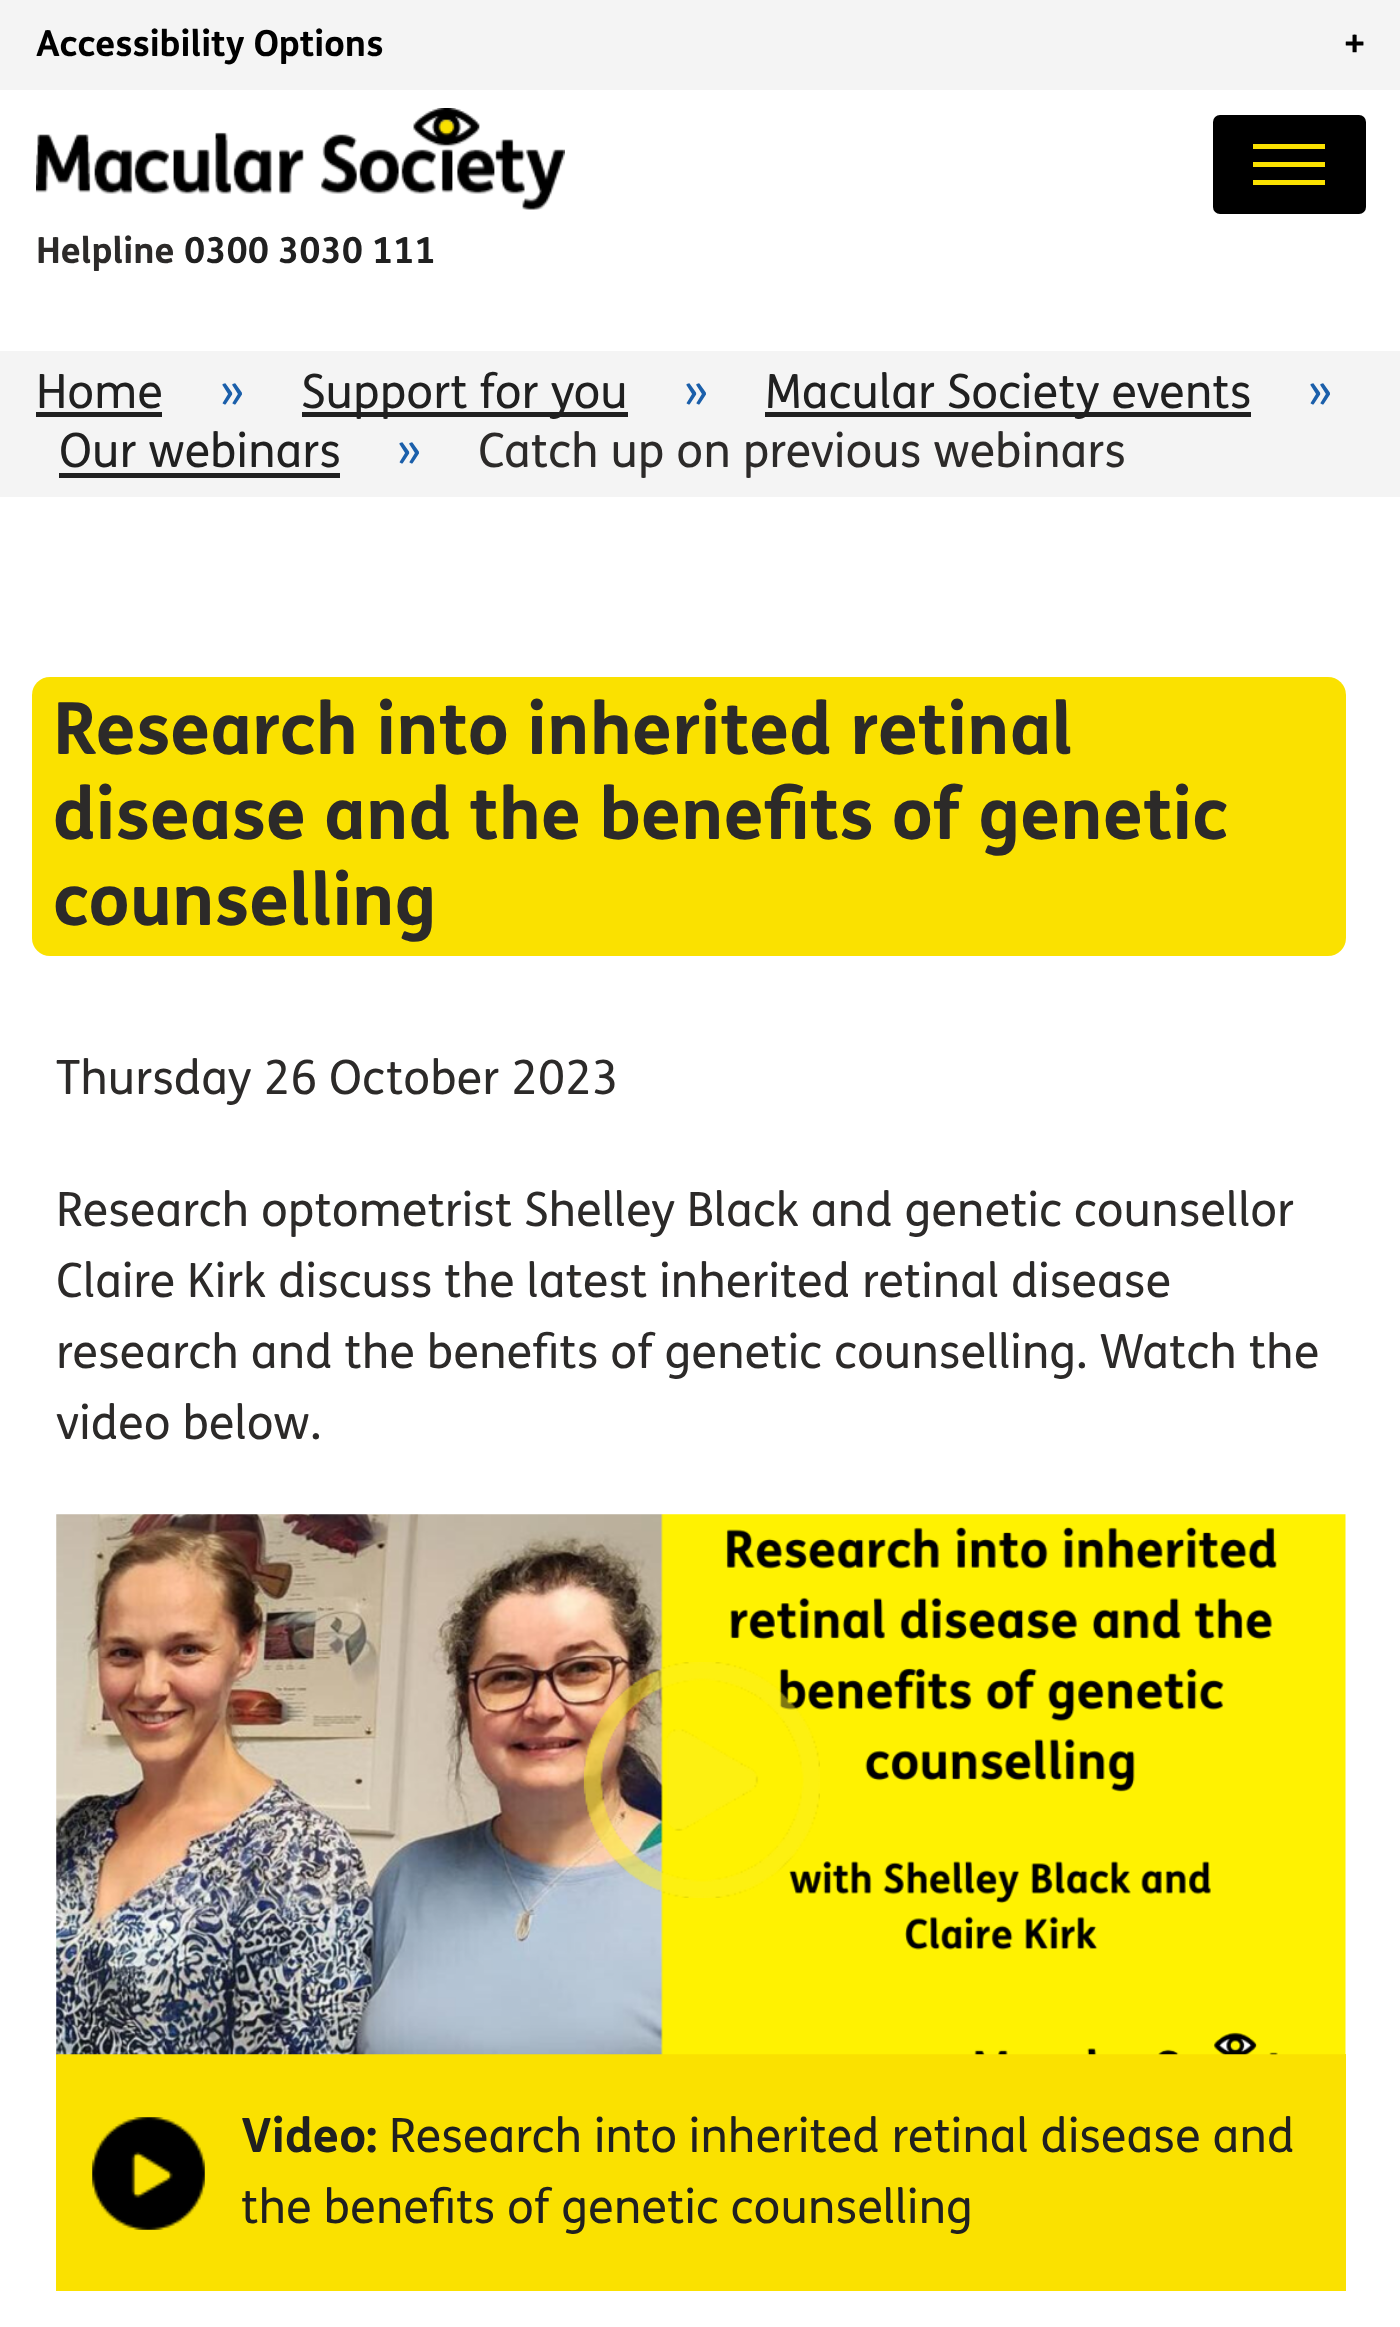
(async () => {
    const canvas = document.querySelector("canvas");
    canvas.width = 1400;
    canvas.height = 2327;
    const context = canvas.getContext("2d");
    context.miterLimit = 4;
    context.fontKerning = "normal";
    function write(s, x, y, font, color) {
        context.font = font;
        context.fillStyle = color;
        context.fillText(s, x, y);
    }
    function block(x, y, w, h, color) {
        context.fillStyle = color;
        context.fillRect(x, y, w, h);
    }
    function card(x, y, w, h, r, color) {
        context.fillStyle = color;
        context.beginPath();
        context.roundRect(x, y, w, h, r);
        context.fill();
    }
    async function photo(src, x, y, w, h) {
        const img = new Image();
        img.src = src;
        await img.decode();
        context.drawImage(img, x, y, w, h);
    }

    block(0, 0, 1400, 2327, "rgb(255, 255, 255)");
    block(0, 0, 1400, 90, "rgb(244, 244, 244)");
    write("Accessibility Options", 36, 56, "bold 36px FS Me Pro", "rgb(0, 0, 0)");
    write("+", 1344, 56, "bold 36px FS Me Pro", "rgb(0, 0, 0)");
    await photo("media/1.png", 36, 108, 529, 102);
    card(1213, 115, 153, 99, 7, "rgb(0, 0, 0)");
    block(1253, 144, 72, 5, "rgb(250, 225, 0)");
    block(1253, 162, 72, 5, "rgb(250, 225, 0)");
    block(1253, 180, 72, 5, "rgb(250, 225, 0)");
    write("Helpline", 36, 263, "bold 36px FS Me Pro", "rgb(44, 42, 41)");
    write("0300 3030 111", 184, 263, "bold 36px FS Me Pro", "rgb(32, 32, 32)");
    block(0, 351, 1400, 146, "rgb(244, 244, 244)");
    write("Home", 36, 408, "47.25px FS Me Pro", "rgb(32, 32, 32)");
    block(36, 412, 126, 5, "rgb(32, 32, 32)");
    write("»", 220, 408, "47.25px FS Me Pro", "rgb(27, 95, 170)");
    block(302, 412, 326, 5, "rgb(32, 32, 32)");
    write("Support for you", 301, 408, "47.25px FS Me Pro", "rgb(32, 32, 32)");
    write("»", 684, 408, "47.25px FS Me Pro", "rgb(27, 95, 170)");
    block(765, 412, 486, 5, "rgb(32, 32, 32)");
    write("Macular Society events", 765, 408, "47.25px FS Me Pro", "rgb(32, 32, 32)");
    write("»", 1308, 408, "47.25px FS Me Pro", "rgb(27, 95, 170)");
    write("Our webinars", 59, 467, "47.25px FS Me Pro", "rgb(32, 32, 32)");
    block(59, 473, 281, 5, "rgb(32, 32, 32)");
    write("»", 397, 467, "47.25px FS Me Pro", "rgb(27, 95, 170)");
    write("Catch up on previous webinars", 478, 467, "47.25px FS Me Pro", "rgb(44, 42, 41)");
    card(32, 677, 1314, 279, 18, "rgb(250, 225, 0)");
    write("Research into inherited retinal", 53, 754, "bold 72px FS Me Pro", "rgb(44, 42, 41)");
    write("disease and the benefits of genetic", 53, 839, "bold 72px FS Me Pro", "rgb(44, 42, 41)");
    write("counselling", 53, 925, "bold 72px FS Me Pro", "rgb(44, 42, 41)");
    write("Thursday 26 October 2023", 56, 1094, "47.25px FS Me Pro", "rgb(44, 42, 41)");
    write("Research optometrist Shelley Black and genetic counsellor", 56, 1226, "47.25px FS Me Pro", "rgb(44, 42, 41)");
    write("Claire Kirk discuss the latest inherited retinal disease", 56, 1297, "47.25px FS Me Pro", "rgb(44, 42, 41)");
    write("research and the benefits of genetic counselling. Watch the", 56, 1368, "47.25px FS Me Pro", "rgb(44, 42, 41)");
    write("video below.", 56, 1439, "47.25px FS Me Pro", "rgb(44, 42, 41)");
    block(56, 2054, 1290, 237, "rgb(250, 225, 0)");
    await photo("media/2.png", 56, 1514, 1290, 541);
    await photo("media/3.png", 583, 1662, 237, 236);
    await photo("media/4.png", 92, 2117, 113, 113);
    write("Video:", 241, 2152, "bold 47.25px FS Me Pro", "rgb(32, 32, 32)");
    write("Research into inherited retinal disease and", 389, 2152, "47.25px FS Me Pro", "rgb(32, 32, 32)");
    write("the benefits of genetic counselling", 241, 2223, "47.25px FS Me Pro", "rgb(32, 32, 32)");
})();
